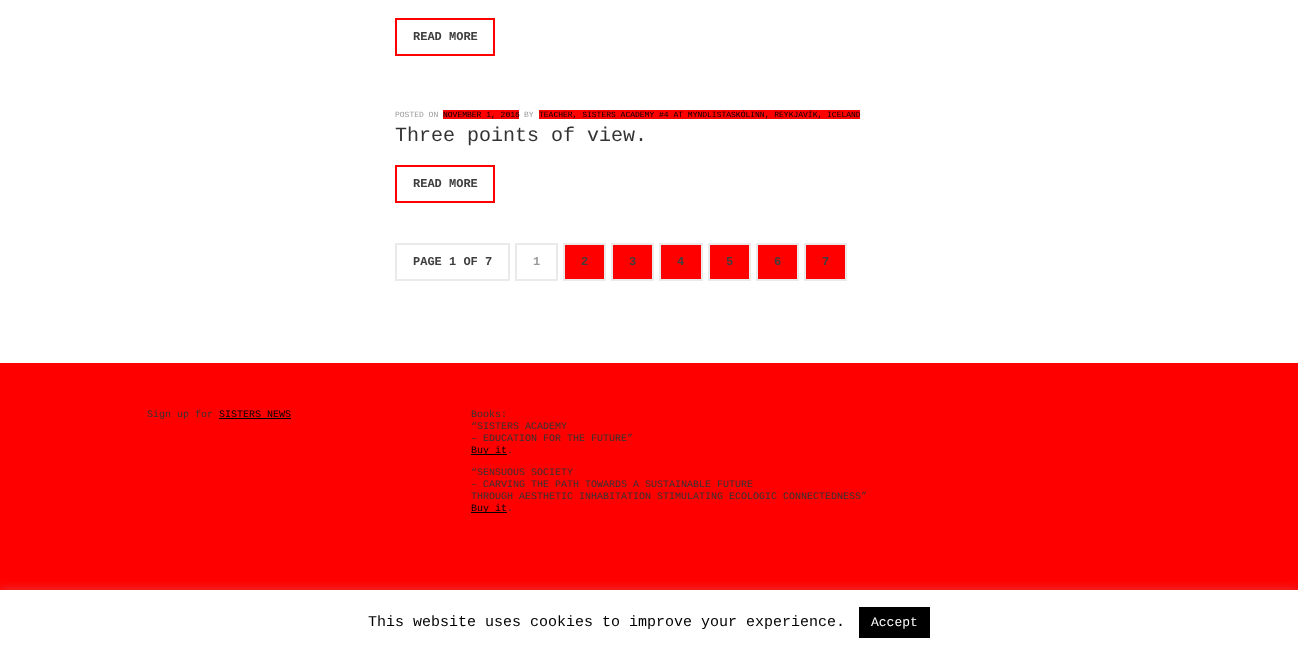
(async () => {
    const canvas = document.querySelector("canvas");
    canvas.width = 1298;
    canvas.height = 650;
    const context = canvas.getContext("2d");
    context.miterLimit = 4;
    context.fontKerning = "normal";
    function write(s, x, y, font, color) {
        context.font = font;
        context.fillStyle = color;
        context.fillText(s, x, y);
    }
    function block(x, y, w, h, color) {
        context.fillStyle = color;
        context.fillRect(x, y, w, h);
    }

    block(0, 0, 1298, 650, "rgb(255, 255, 255)");
    context.strokeStyle = "rgb(255, 0, 0)";
    context.lineWidth = 2;
    context.strokeRect(396, 19, 98, 36);
    write("READ MORE", 413, 40, "bold 12px Liberation Mono", "rgb(63, 63, 63)");
    write("POSTED ON", 395, 117, "8px Liberation Mono", "rgb(153, 153, 153)");
    block(443, 110, 76, 9, "rgb(255, 0, 0)");
    write("NOVEMBER 1, 2016", 443, 117, "8px Liberation Mono", "rgb(0, 0, 0)");
    write("BY", 524, 117, "8px Liberation Mono", "rgb(153, 153, 153)");
    block(539, 110, 321, 9, "rgb(255, 0, 0)");
    write("TEACHER, SISTERS ACADEMY #4 AT MYNDLISTASKÓLINN, REYKJAVÍK, ICELAND", 539, 117, "8px Liberation Mono", "rgb(0, 0, 0)");
    write("Three points of view.", 395, 141, "20px Liberation Mono", "rgb(51, 51, 51)");
    context.strokeRect(396, 166, 98, 36);
    write("READ MORE", 413, 187, "bold 12px Liberation Mono", "rgb(63, 63, 63)");
    context.strokeStyle = "rgb(234, 234, 234)";
    context.strokeRect(396, 244, 113, 36);
    write("PAGE 1 OF 7", 413, 265, "bold 12px Liberation Mono", "rgb(63, 63, 63)");
    context.strokeRect(516, 244, 41, 36);
    write("1", 533, 265, "bold 12px Liberation Mono", "rgb(153, 153, 153)");
    context.fillStyle = "rgb(255, 0, 0)";
    context.beginPath();
    context.rect(564, 244, 41, 36);
    context.fill();
    context.stroke();
    write("2", 581, 265, "bold 12px Liberation Mono", "rgb(63, 63, 63)");
    context.fillStyle = "rgb(255, 0, 0)";
    context.beginPath();
    context.rect(612, 244, 41, 36);
    context.fill();
    context.stroke();
    write("3", 629, 265, "bold 12px Liberation Mono", "rgb(63, 63, 63)");
    context.fillStyle = "rgb(255, 0, 0)";
    context.beginPath();
    context.rect(660, 244, 42, 36);
    context.fill();
    context.stroke();
    write("4", 677, 265, "bold 12px Liberation Mono", "rgb(63, 63, 63)");
    context.fillStyle = "rgb(255, 0, 0)";
    context.beginPath();
    context.rect(709, 244, 41, 36);
    context.fill();
    context.stroke();
    write("5", 726, 265, "bold 12px Liberation Mono", "rgb(63, 63, 63)");
    context.fillStyle = "rgb(255, 0, 0)";
    context.beginPath();
    context.rect(757, 244, 41, 36);
    context.fill();
    context.stroke();
    write("6", 774, 265, "bold 12px Liberation Mono", "rgb(63, 63, 63)");
    context.fillStyle = "rgb(255, 0, 0)";
    context.beginPath();
    context.rect(805, 244, 41, 36);
    context.fill();
    context.stroke();
    write("7", 822, 265, "bold 12px Liberation Mono", "rgb(63, 63, 63)");
    block(0, 363, 1298, 227, "rgb(255, 0, 0)");
    write("Sign up for", 147, 417, "10px Liberation Mono", "rgb(51, 51, 51)");
    write("SISTERS NEWS", 219, 417, "10px Liberation Mono", "rgb(0, 0, 0)");
    block(219, 418, 72, 1, "rgb(0, 0, 0)");
    write("Books:", 471, 417, "10px Liberation Mono", "rgb(51, 51, 51)");
    write("“SISTERS ACADEMY", 471, 429, "10px Liberation Mono", "rgb(51, 51, 51)");
    write("– EDUCATION FOR THE FUTURE”", 471, 441, "10px Liberation Mono", "rgb(51, 51, 51)");
    block(471, 454, 36, 1, "rgb(0, 0, 0)");
    write("Buy it", 471, 453, "10px Liberation Mono", "rgb(0, 0, 0)");
    write(".", 507, 453, "10px Liberation Mono", "rgb(51, 51, 51)");
    write("“SENSUOUS SOCIETY", 471, 475, "10px Liberation Mono", "rgb(51, 51, 51)");
    write("– CARVING THE PATH TOWARDS A SUSTAINABLE FUTURE", 471, 487, "10px Liberation Mono", "rgb(51, 51, 51)");
    write("THROUGH AESTHETIC INHABITATION STIMULATING ECOLOGIC CONNECTEDNESS”", 471, 499, "10px Liberation Mono", "rgb(51, 51, 51)");
    block(471, 512, 36, 1, "rgb(0, 0, 0)");
    write("Buy it", 471, 511, "10px Liberation Mono", "rgb(0, 0, 0)");
    write(".", 507, 511, "10px Liberation Mono", "rgb(51, 51, 51)");
    context.fillStyle = "rgba(172, 171, 171, 0.3)";
    context.filter = "blur(5px)";
    context.beginPath();
    context.rect(0, 589, 1298, 60);
    context.fill();
    context.filter = "none";
    block(0, 590, 1298, 60, "rgb(255, 255, 255)");
    write("This website uses cookies to improve your experience.", 368, 626, "15px Liberation Mono", "rgb(0, 0, 0)");
    block(859, 607, 71, 31, "rgb(0, 0, 0)");
    write("Accept", 871, 626, "13px Liberation Mono", "rgb(255, 255, 255)");
})();
